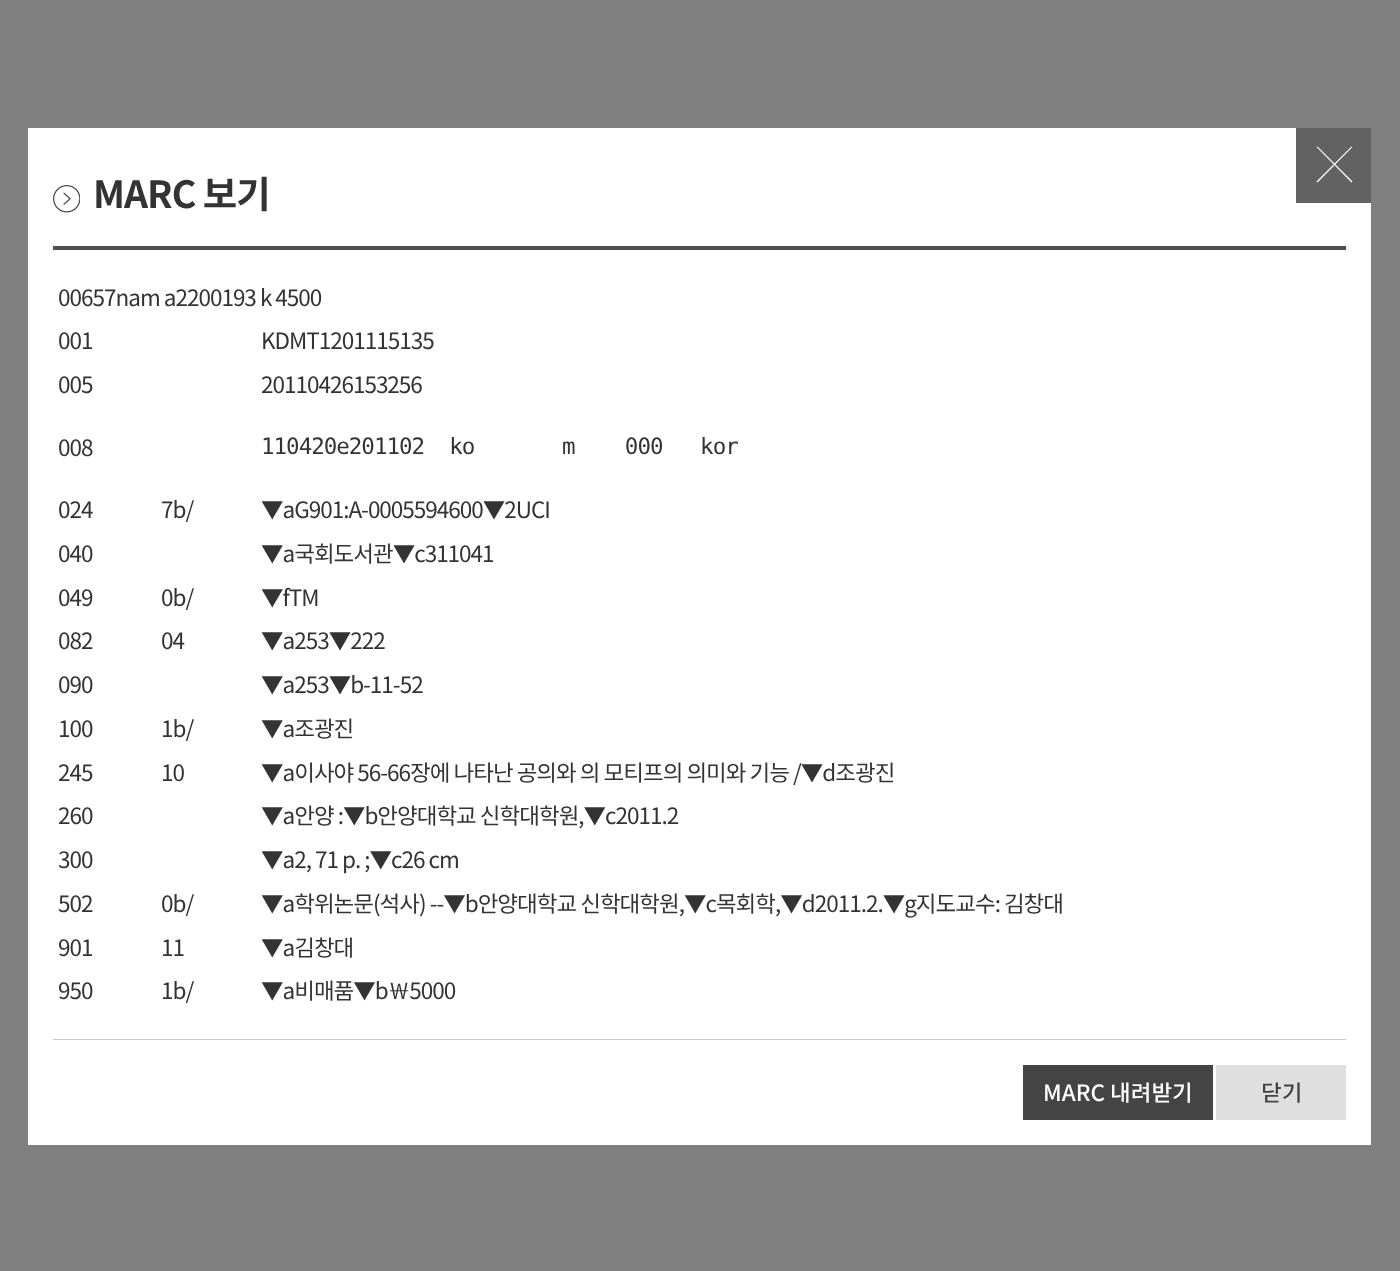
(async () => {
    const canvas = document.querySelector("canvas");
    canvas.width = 1400;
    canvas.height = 1271;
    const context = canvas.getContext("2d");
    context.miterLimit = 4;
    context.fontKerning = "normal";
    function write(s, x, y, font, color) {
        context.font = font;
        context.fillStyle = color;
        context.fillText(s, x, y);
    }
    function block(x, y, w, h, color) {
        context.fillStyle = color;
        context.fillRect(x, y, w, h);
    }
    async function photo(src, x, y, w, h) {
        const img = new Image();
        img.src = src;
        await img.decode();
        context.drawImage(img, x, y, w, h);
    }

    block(0, 0, 1400, 1271, "rgb(128, 128, 128)");
    block(28, 128, 1343, 1017, "rgb(255, 255, 255)");
    block(53, 246, 1293, 4, "rgb(79, 79, 79)");
    await photo("media/1.png", 53, 185, 27, 28);
    context.letterSpacing = "-1px";
    write("MARC 보기", 93, 208, "bold 37.5px Noto Sans KR", "rgb(51, 51, 51)");
    block(1296, 128, 75, 75, "rgb(98, 98, 98)");
    context.fillStyle = "rgb(255, 255, 255)";
    context.beginPath();
    context.moveTo(1316.5, 181.5);
    context.lineTo(1351.5, 146.5);
    context.lineTo(1352.5, 147);
    context.lineTo(1317.5, 182.5);
    context.closePath();
    context.fill();
    context.beginPath();
    context.moveTo(1317.5, 146.5);
    context.lineTo(1352.5, 181.5);
    context.lineTo(1351.5, 182.5);
    context.lineTo(1316.5, 147);
    context.closePath();
    context.fill();
    write("00657nam a2200193 k 4500", 58, 306, "22.5px Noto Sans KR", "rgb(51, 51, 51)");
    write("001", 58, 349, "22.5px Noto Sans KR", "rgb(51, 51, 51)");
    write("KDMT1201115135", 261, 349, "22.5px Noto Sans KR", "rgb(51, 51, 51)");
    write("005", 58, 393, "22.5px Noto Sans KR", "rgb(51, 51, 51)");
    write("20110426153256", 261, 393, "22.5px Noto Sans KR", "rgb(51, 51, 51)");
    write("008", 58, 456, "22.5px Noto Sans KR", "rgb(51, 51, 51)");
    write("110420e201102  ko       m    000   kor", 261, 454, "22.5px DejaVu Sans Mono", "rgb(51, 51, 51)");
    write("024", 58, 518, "22.5px Noto Sans KR", "rgb(51, 51, 51)");
    write("7b/", 161, 518, "22.5px Noto Sans KR", "rgb(51, 51, 51)");
    write("▼aG901:A-0005594600▼2UCI", 261, 518, "22.5px Noto Sans KR", "rgb(51, 51, 51)");
    write("040", 58, 562, "22.5px Noto Sans KR", "rgb(51, 51, 51)");
    write("▼a국회도서관▼c311041", 261, 562, "22.5px Noto Sans KR", "rgb(51, 51, 51)");
    write("049", 58, 606, "22.5px Noto Sans KR", "rgb(51, 51, 51)");
    write("0b/", 161, 606, "22.5px Noto Sans KR", "rgb(51, 51, 51)");
    write("▼fTM", 261, 606, "22.5px Noto Sans KR", "rgb(51, 51, 51)");
    write("082", 58, 649, "22.5px Noto Sans KR", "rgb(51, 51, 51)");
    write("04", 161, 649, "22.5px Noto Sans KR", "rgb(51, 51, 51)");
    write("▼a253▼222", 261, 649, "22.5px Noto Sans KR", "rgb(51, 51, 51)");
    write("090", 58, 693, "22.5px Noto Sans KR", "rgb(51, 51, 51)");
    write("▼a253▼b-11-52", 261, 693, "22.5px Noto Sans KR", "rgb(51, 51, 51)");
    write("100", 58, 737, "22.5px Noto Sans KR", "rgb(51, 51, 51)");
    write("1b/", 161, 737, "22.5px Noto Sans KR", "rgb(51, 51, 51)");
    write("▼a조광진", 261, 737, "22.5px Noto Sans KR", "rgb(51, 51, 51)");
    write("245", 58, 781, "22.5px Noto Sans KR", "rgb(51, 51, 51)");
    write("10", 161, 781, "22.5px Noto Sans KR", "rgb(51, 51, 51)");
    write("▼a이사야 56-66장에 나타난 공의와 의 모티프의 의미와 기능 /▼d조광진", 261, 781, "22.5px Noto Sans KR", "rgb(51, 51, 51)");
    write("260", 58, 824, "22.5px Noto Sans KR", "rgb(51, 51, 51)");
    write("▼a안양 :▼b안양대학교 신학대학원,▼c2011.2", 261, 824, "22.5px Noto Sans KR", "rgb(51, 51, 51)");
    write("300", 58, 868, "22.5px Noto Sans KR", "rgb(51, 51, 51)");
    write("▼a2, 71 p. ;▼c26 cm", 261, 868, "22.5px Noto Sans KR", "rgb(51, 51, 51)");
    write("502", 58, 912, "22.5px Noto Sans KR", "rgb(51, 51, 51)");
    write("0b/", 161, 912, "22.5px Noto Sans KR", "rgb(51, 51, 51)");
    write("▼a학위논문(석사) --▼b안양대학교 신학대학원,▼c목회학,▼d2011.2.▼g지도교수: 김창대", 261, 912, "22.5px Noto Sans KR", "rgb(51, 51, 51)");
    write("901", 58, 956, "22.5px Noto Sans KR", "rgb(51, 51, 51)");
    write("11", 161, 956, "22.5px Noto Sans KR", "rgb(51, 51, 51)");
    write("▼a김창대", 261, 956, "22.5px Noto Sans KR", "rgb(51, 51, 51)");
    write("950", 58, 999, "22.5px Noto Sans KR", "rgb(51, 51, 51)");
    write("1b/", 161, 999, "22.5px Noto Sans KR", "rgb(51, 51, 51)");
    write("▼a비매품▼b￦5000", 261, 999, "22.5px Noto Sans KR", "rgb(51, 51, 51)");
    block(53, 1039, 1293, 1, "rgb(202, 202, 202)");
    block(1023, 1065, 190, 55, "rgb(68, 68, 68)");
    context.letterSpacing = "0px";
    write("MARC 내려받기", 1043, 1101, "500 22.5px Noto Sans KR", "rgb(255, 255, 255)");
    block(1216, 1065, 130, 55, "rgb(223, 223, 223)");
    write("닫기", 1261, 1101, "500 22.5px Noto Sans KR", "rgb(68, 68, 68)");
})();
